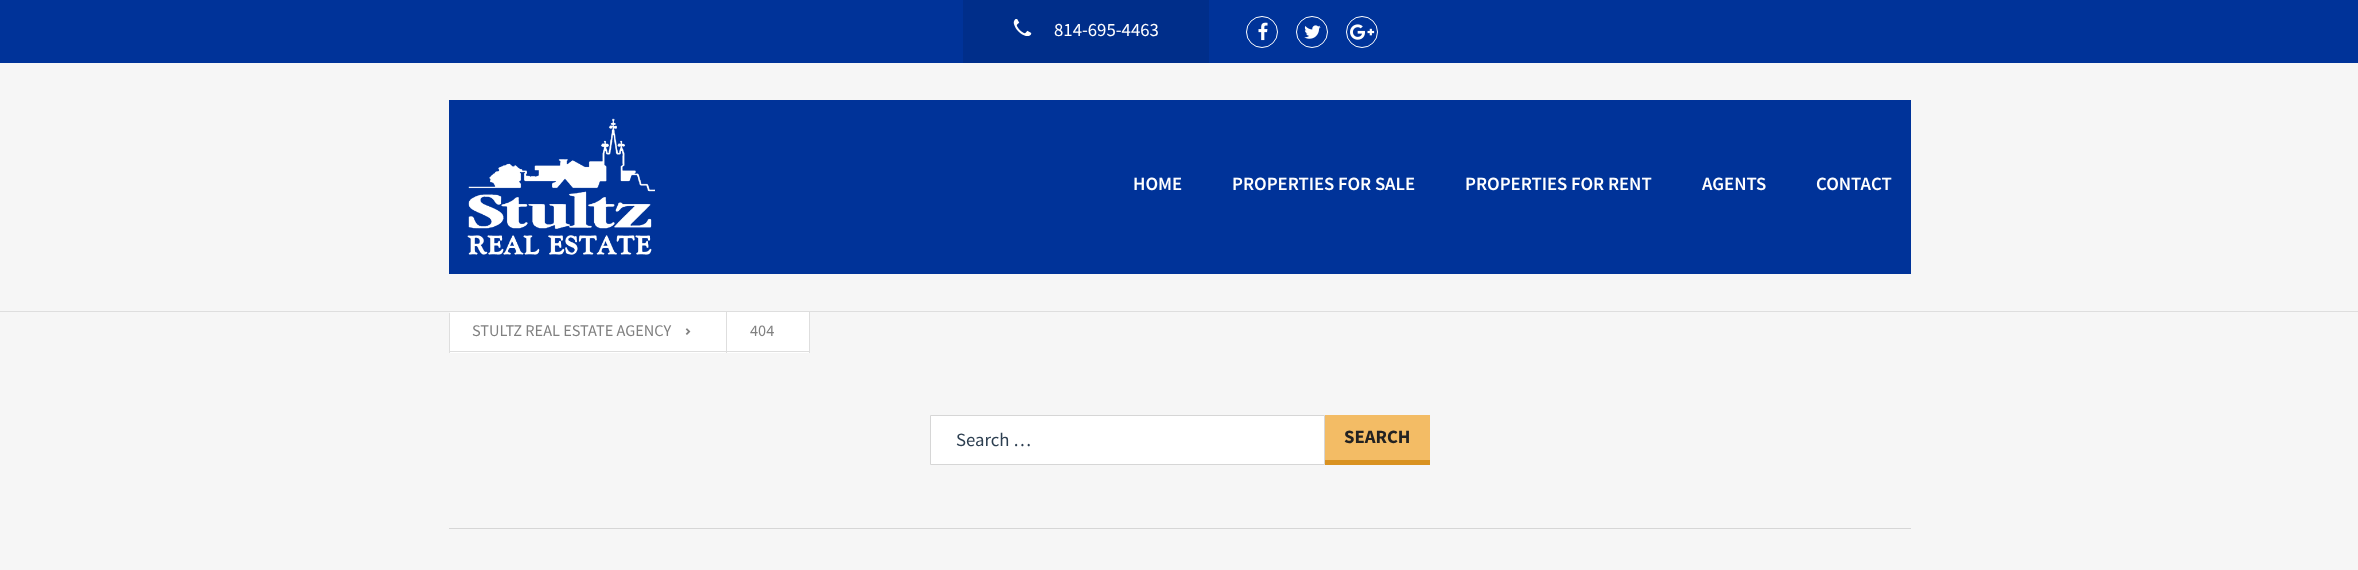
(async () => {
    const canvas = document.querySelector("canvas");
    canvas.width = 2358;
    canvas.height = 570;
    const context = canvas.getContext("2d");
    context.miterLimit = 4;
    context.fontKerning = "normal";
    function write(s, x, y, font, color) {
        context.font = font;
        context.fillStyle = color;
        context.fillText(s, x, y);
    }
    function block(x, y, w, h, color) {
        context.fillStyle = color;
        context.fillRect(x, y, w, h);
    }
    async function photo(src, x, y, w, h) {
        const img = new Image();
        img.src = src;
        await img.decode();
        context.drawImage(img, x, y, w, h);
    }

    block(0, 0, 2358, 570, "rgb(246, 246, 246)");
    block(0, 0, 2358, 63, "rgb(0, 51, 153)");
    block(963, 0, 246, 63, "rgb(0, 46, 138)");
    await photo("media/1.png", 1013, 19, 19, 17);
    write("814-695-4463", 1054, 36, "18.75px Source Sans Pro", "rgb(255, 255, 255)");
    context.beginPath();
    context.arc(1262, 32, 15.5, 0, Math.PI * 2);
    context.strokeStyle = "rgb(255, 255, 255)";
    context.stroke();
    await photo("media/2.png", 1258, 22, 10, 19);
    context.beginPath();
    context.arc(1312, 32, 15.5, 0, Math.PI * 2);
    context.stroke();
    await photo("media/3.png", 1304, 25, 17, 14);
    context.beginPath();
    context.arc(1362, 32, 15.5, 0, Math.PI * 2);
    context.stroke();
    await photo("media/4.png", 1350, 24, 25, 16);
    block(449, 100, 1462, 174, "rgb(0, 51, 153)");
    await photo("media/5.png", 467, 118, 188, 137);
    write("HOME", 1133, 190, "600 18.75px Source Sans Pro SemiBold", "rgb(255, 255, 255)");
    write("PROPERTIES FOR SALE", 1232, 190, "600 18.75px Source Sans Pro SemiBold", "rgb(255, 255, 255)");
    write("PROPERTIES FOR RENT", 1465, 190, "600 18.75px Source Sans Pro SemiBold", "rgb(255, 255, 255)");
    write("AGENTS", 1702, 190, "600 18.75px Source Sans Pro SemiBold", "rgb(255, 255, 255)");
    write("CONTACT", 1816, 190, "600 18.75px Source Sans Pro SemiBold", "rgb(255, 255, 255)");
    block(0, 311, 2358, 1, "rgb(222, 222, 222)");
    block(449, 313, 1, 40, "rgb(222, 222, 222)");
    block(450, 312, 359, 41, "rgb(255, 255, 255)");
    block(726, 311, 1, 42, "rgb(222, 222, 222)");
    block(450, 351, 278, 1, "rgb(222, 222, 222)");
    write("STULTZ REAL ESTATE AGENCY", 472, 336, "16.25px Source Sans Pro", "rgb(128, 128, 128)");
    await photo("media/6.png", 685, 328, 6, 7);
    block(809, 311, 1, 42, "rgb(222, 222, 222)");
    block(728, 351, 82, 1, "rgb(222, 222, 222)");
    write("404", 750, 336, "16.25px Source Sans Pro", "rgb(128, 128, 128)");
    context.fillStyle = "rgb(255, 255, 255)";
    context.beginPath();
    context.rect(930.5, 415.5, 394, 49);
    context.fill();
    context.strokeStyle = "rgb(214, 214, 214)";
    context.stroke();
    write("Search …", 956, 446, "18.75px Source Sans Pro", "rgb(44, 62, 80)");
    block(1325, 415, 105, 45, "rgb(243, 188, 101)");
    block(1325, 460, 105, 5, "rgb(217, 146, 33)");
    write("SEARCH", 1344, 443, "bold 18.75px Source Sans Pro", "rgb(34, 34, 34)");
    block(449, 528, 1462, 1, "rgb(214, 214, 214)");
})();
